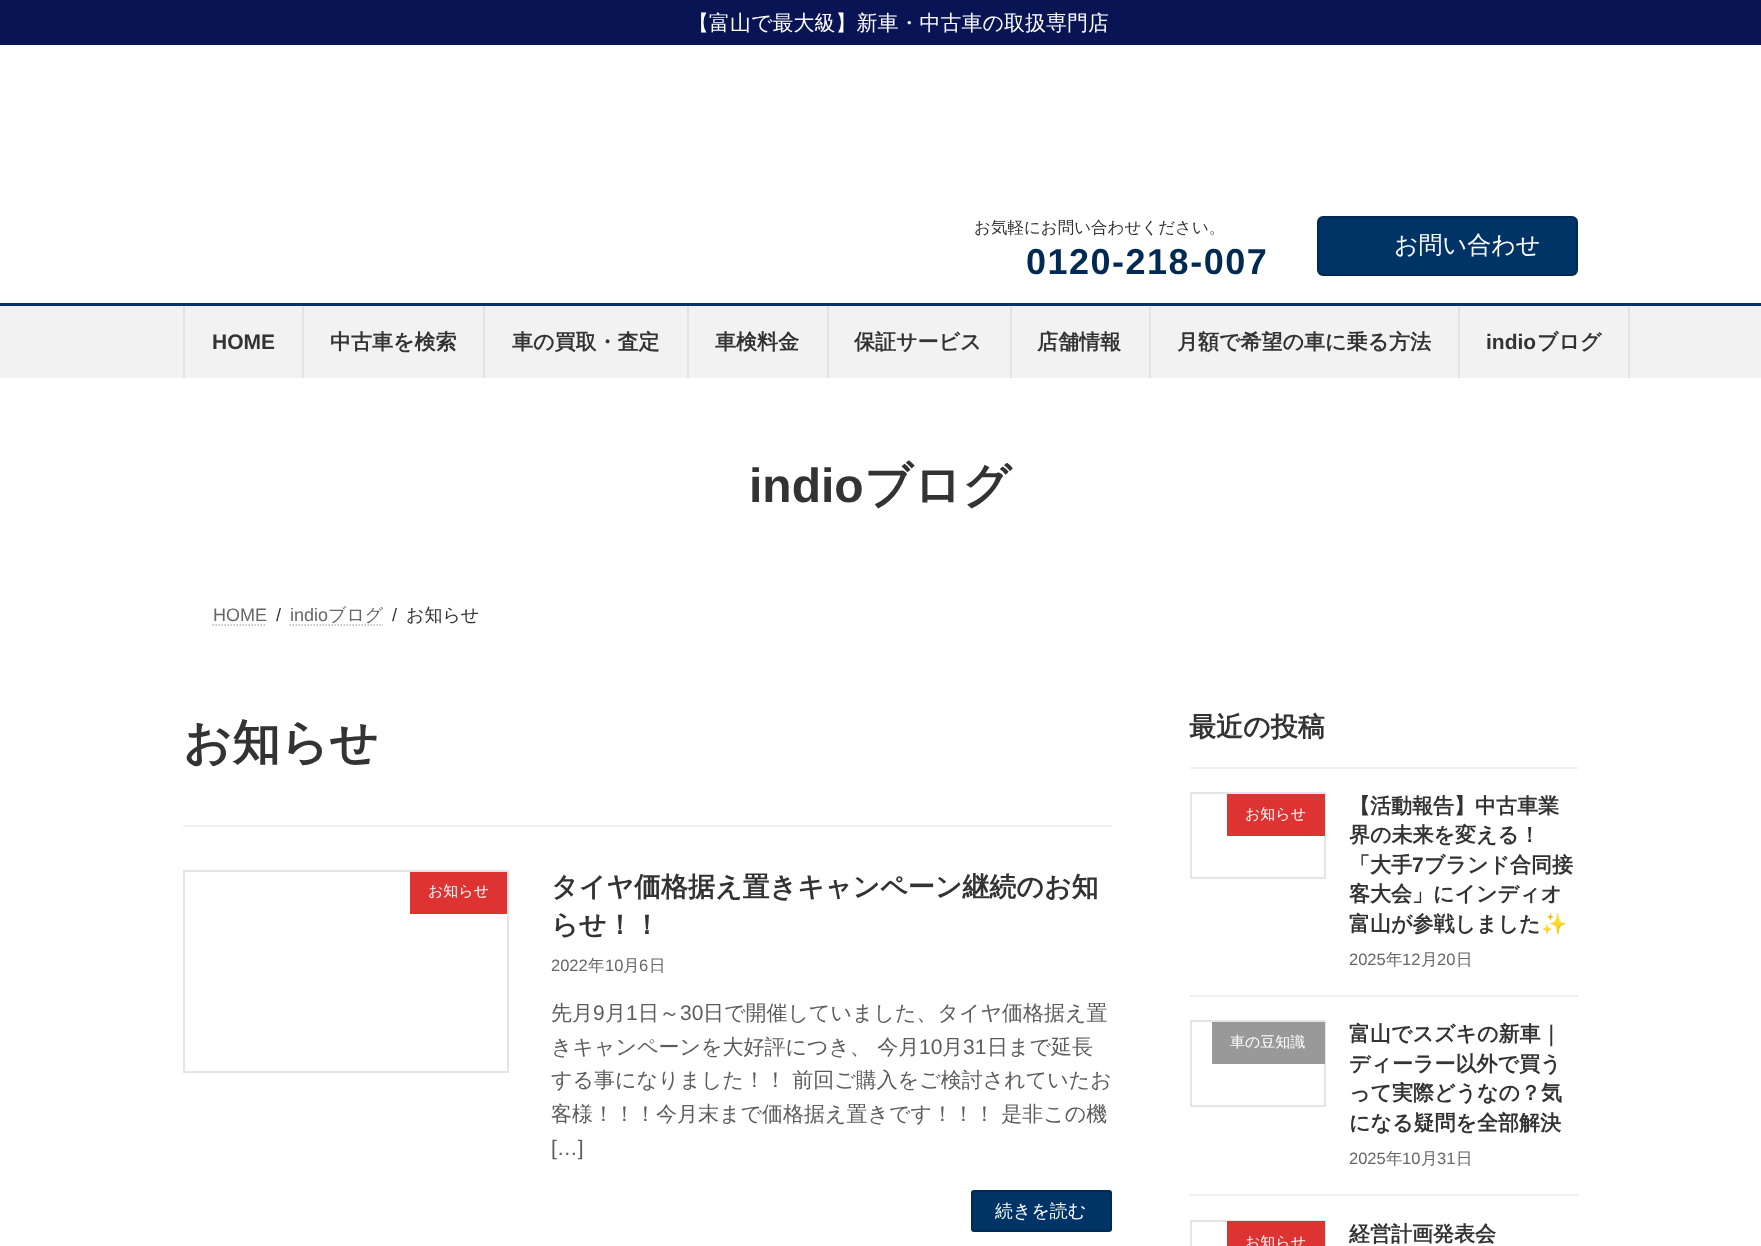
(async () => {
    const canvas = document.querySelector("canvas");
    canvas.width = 1761;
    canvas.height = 1246;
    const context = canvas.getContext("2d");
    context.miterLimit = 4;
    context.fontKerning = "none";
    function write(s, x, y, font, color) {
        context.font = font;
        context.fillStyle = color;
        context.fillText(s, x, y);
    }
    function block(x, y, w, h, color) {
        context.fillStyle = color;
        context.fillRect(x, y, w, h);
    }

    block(0, 0, 1761, 1246, "rgb(255, 255, 255)");
    block(0, 0, 1761, 45, "rgb(9, 20, 84)");
    write("【富山で最大級】新車・中古車の取扱専門店", 688, 30, "500 21px WenQuanYi Zen Hei", "rgb(255, 255, 255)");
    write("お気軽にお問い合わせください。", 974, 233, "500 16.5px WenQuanYi Zen Hei", "rgb(51, 51, 51)");
    context.letterSpacing = "1.5px";
    write("0120-218-007", 1026, 274, "bold 36px Liberation Sans", "rgb(0, 42, 82)");
    context.fillStyle = "rgb(0, 52, 102)";
    context.beginPath();
    context.roundRect(1318, 217, 259, 58, 5);
    context.fill();
    context.strokeStyle = "rgb(0, 42, 82)";
    context.lineWidth = 2;
    context.stroke();
    context.letterSpacing = "0px";
    write("お問い合わせ", 1394, 253, "500 24px WenQuanYi Zen Hei", "rgb(255, 255, 255)");
    block(0, 306, 1761, 72, "rgb(242, 242, 242)");
    block(0, 303, 1761, 3, "rgb(0, 52, 102)");
    block(302, 306, 2, 72, "rgb(227, 227, 227)");
    block(183, 306, 2, 72, "rgb(227, 227, 227)");
    write("HOME", 212, 349, "bold 21px Liberation Sans", "rgb(51, 51, 51)");
    block(483, 306, 2, 72, "rgb(227, 227, 227)");
    write("中古車を検索", 330, 349, "bold 21px WenQuanYi Zen Hei", "rgb(51, 51, 51)");
    block(687, 306, 2, 72, "rgb(227, 227, 227)");
    write("車の買取・査定", 512, 349, "bold 21px WenQuanYi Zen Hei", "rgb(51, 51, 51)");
    block(827, 306, 2, 72, "rgb(227, 227, 227)");
    write("車検料金", 715, 349, "bold 21px WenQuanYi Zen Hei", "rgb(51, 51, 51)");
    block(1010, 306, 2, 72, "rgb(227, 227, 227)");
    write("保証サービス", 854, 349, "bold 21px WenQuanYi Zen Hei", "rgb(51, 51, 51)");
    block(1149, 306, 2, 72, "rgb(227, 227, 227)");
    write("店舗情報", 1037, 349, "bold 21px WenQuanYi Zen Hei", "rgb(51, 51, 51)");
    block(1458, 306, 2, 72, "rgb(227, 227, 227)");
    write("月額で希望の車に乗る方法", 1177, 349, "bold 21px WenQuanYi Zen Hei", "rgb(51, 51, 51)");
    block(1628, 306, 2, 72, "rgb(227, 227, 227)");
    write("indio", 1486, 349, "bold 21px Liberation Sans", "rgb(51, 51, 51)");
    write("ブログ", 1537, 349, "bold 21px WenQuanYi Zen Hei", "rgb(51, 51, 51)");
    write("indio", 749, 502, "bold 48px Liberation Sans", "rgb(51, 51, 51)");
    write("ブログ", 864, 502, "bold 48px WenQuanYi Zen Hei", "rgb(51, 51, 51)");
    write("HOME", 213, 621, "18px Liberation Sans", "rgb(102, 102, 102)");
    context.beginPath();
    context.moveTo(212.5, 625);
    context.lineTo(266.5, 625);
    context.strokeStyle = "rgb(179, 179, 179)";
    context.lineWidth = 1.5;
    context.setLineDash([1.5, 1.5]);
    context.stroke();
    write("/", 276, 621, "18px Liberation Sans", "rgb(51, 51, 51)");
    write("indio", 290, 621, "18px Liberation Sans", "rgb(102, 102, 102)");
    context.beginPath();
    context.moveTo(289.5, 625);
    context.lineTo(383, 625);
    context.stroke();
    write("ブログ", 328, 621, "500 18px WenQuanYi Zen Hei", "rgb(102, 102, 102)");
    write("/", 392, 621, "18px Liberation Sans", "rgb(51, 51, 51)");
    write("お知らせ", 406, 621, "500 18px WenQuanYi Zen Hei", "rgb(51, 51, 51)");
    write("お知らせ", 183, 759, "bold 48px WenQuanYi Zen Hei", "rgb(51, 51, 51)");
    block(183, 825, 929, 2, "rgb(240, 240, 240)");
    context.strokeStyle = "rgb(229, 229, 229)";
    context.lineWidth = 2;
    context.setLineDash([]);
    context.strokeRect(184, 871, 324, 201);
    block(410, 872, 97, 42, "rgb(221, 51, 51)");
    write("お知らせ", 428, 896, "500 15px WenQuanYi Zen Hei", "rgb(255, 255, 255)");
    write("タイヤ価格据え置きキャンペーン継続のお知", 551, 896, "bold 27px WenQuanYi Zen Hei", "rgb(51, 51, 51)");
    write("らせ！！", 551, 934, "bold 27px WenQuanYi Zen Hei", "rgb(51, 51, 51)");
    write("2022", 551, 971, "16.5px Liberation Sans", "rgb(102, 102, 102)");
    write("年", 588, 971, "500 16.5px WenQuanYi Zen Hei", "rgb(102, 102, 102)");
    write("10", 605, 971, "16.5px Liberation Sans", "rgb(102, 102, 102)");
    write("月", 623, 971, "500 16.5px WenQuanYi Zen Hei", "rgb(102, 102, 102)");
    write("6", 639, 971, "16.5px Liberation Sans", "rgb(102, 102, 102)");
    write("日", 649, 971, "500 16.5px WenQuanYi Zen Hei", "rgb(102, 102, 102)");
    write("先月", 551, 1020, "500 21px WenQuanYi Zen Hei", "rgb(92, 92, 92)");
    write("9", 593, 1020, "21px Liberation Sans", "rgb(92, 92, 92)");
    write("月", 605, 1020, "500 21px WenQuanYi Zen Hei", "rgb(92, 92, 92)");
    write("1", 626, 1020, "21px Liberation Sans", "rgb(92, 92, 92)");
    write("日～", 638, 1020, "500 21px WenQuanYi Zen Hei", "rgb(92, 92, 92)");
    write("30", 680, 1020, "21px Liberation Sans", "rgb(92, 92, 92)");
    write("日で開催していました、タイヤ価格据え置", 703, 1020, "500 21px WenQuanYi Zen Hei", "rgb(92, 92, 92)");
    write("きキャンペーンを大好評につき、 今月", 551, 1054, "500 21px WenQuanYi Zen Hei", "rgb(92, 92, 92)");
    write("10", 919, 1054, "21px Liberation Sans", "rgb(92, 92, 92)");
    write("月", 942, 1054, "500 21px WenQuanYi Zen Hei", "rgb(92, 92, 92)");
    write("31", 963, 1054, "21px Liberation Sans", "rgb(92, 92, 92)");
    write("日まで延長", 987, 1054, "500 21px WenQuanYi Zen Hei", "rgb(92, 92, 92)");
    write("する事になりました！！ 前回ご購入をご検討されていたお", 551, 1087, "500 21px WenQuanYi Zen Hei", "rgb(92, 92, 92)");
    write("客様！！！今月末まで価格据え置きです！！！ 是非この機", 551, 1121, "500 21px WenQuanYi Zen Hei", "rgb(92, 92, 92)");
    write("[…]", 551, 1155, "21px Liberation Sans", "rgb(92, 92, 92)");
    context.fillStyle = "rgb(0, 52, 102)";
    context.beginPath();
    context.roundRect(972, 1191, 139, 40, 2);
    context.fill();
    context.strokeStyle = "rgb(0, 42, 82)";
    context.stroke();
    write("続きを読む", 995, 1217, "500 18px WenQuanYi Zen Hei", "rgb(255, 255, 255)");
    write("最近の投稿", 1189, 736, "bold 27px WenQuanYi Zen Hei", "rgb(51, 51, 51)");
    block(1190, 767, 388, 2, "rgb(240, 240, 240)");
    block(1190, 995, 388, 2, "rgb(240, 240, 240)");
    context.strokeStyle = "rgb(229, 229, 229)";
    context.strokeRect(1191, 793, 134, 85);
    block(1227, 794, 98, 42, "rgb(221, 51, 51)");
    write("お知らせ", 1245, 819, "500 15px WenQuanYi Zen Hei", "rgb(255, 255, 255)");
    write("【活動報告】中古車業", 1349, 813, "bold 21px WenQuanYi Zen Hei", "rgb(51, 51, 51)");
    write("界の未来を変える！", 1349, 842, "bold 21px WenQuanYi Zen Hei", "rgb(51, 51, 51)");
    write("「大手", 1349, 872, "bold 21px WenQuanYi Zen Hei", "rgb(51, 51, 51)");
    write("7", 1412, 872, "bold 21px Liberation Sans", "rgb(51, 51, 51)");
    write("ブランド合同接", 1424, 872, "bold 21px WenQuanYi Zen Hei", "rgb(51, 51, 51)");
    write("客大会」にインディオ", 1349, 901, "bold 21px WenQuanYi Zen Hei", "rgb(51, 51, 51)");
    write("富山が参戦しました", 1349, 931, "bold 21px WenQuanYi Zen Hei", "rgb(51, 51, 51)");
    write("✨", 1541, 931, "bold 21px Noto Color Emoji", "rgb(51, 51, 51)");
    write("2025", 1349, 965, "16.5px Liberation Sans", "rgb(102, 102, 102)");
    write("年", 1386, 965, "500 16.5px WenQuanYi Zen Hei", "rgb(102, 102, 102)");
    write("12", 1402, 965, "16.5px Liberation Sans", "rgb(102, 102, 102)");
    write("月", 1421, 965, "500 16.5px WenQuanYi Zen Hei", "rgb(102, 102, 102)");
    write("20", 1437, 965, "16.5px Liberation Sans", "rgb(102, 102, 102)");
    write("日", 1456, 965, "500 16.5px WenQuanYi Zen Hei", "rgb(102, 102, 102)");
    block(1190, 1194, 388, 2, "rgb(240, 240, 240)");
    context.strokeRect(1191, 1021, 134, 85);
    block(1212, 1022, 113, 42, "rgb(153, 153, 153)");
    write("車の豆知識", 1230, 1047, "500 15px WenQuanYi Zen Hei", "rgb(255, 255, 255)");
    write("富山でスズキの新車｜", 1349, 1041, "bold 21px WenQuanYi Zen Hei", "rgb(51, 51, 51)");
    write("ディーラー以外で買う", 1349, 1071, "bold 21px WenQuanYi Zen Hei", "rgb(51, 51, 51)");
    write("って実際どうなの？気", 1349, 1100, "bold 21px WenQuanYi Zen Hei", "rgb(51, 51, 51)");
    write("になる疑問を全部解決", 1349, 1130, "bold 21px WenQuanYi Zen Hei", "rgb(51, 51, 51)");
    write("2025", 1349, 1164, "16.5px Liberation Sans", "rgb(102, 102, 102)");
    write("年", 1386, 1164, "500 16.5px WenQuanYi Zen Hei", "rgb(102, 102, 102)");
    write("10", 1402, 1164, "16.5px Liberation Sans", "rgb(102, 102, 102)");
    write("月", 1421, 1164, "500 16.5px WenQuanYi Zen Hei", "rgb(102, 102, 102)");
    write("31", 1437, 1164, "16.5px Liberation Sans", "rgb(102, 102, 102)");
    write("日", 1456, 1164, "500 16.5px WenQuanYi Zen Hei", "rgb(102, 102, 102)");
    context.strokeRect(1191, 1221, 134, 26);
    block(1227, 1221, 98, 25, "rgb(221, 51, 51)");
    write("お知らせ", 1245, 1247, "500 15px WenQuanYi Zen Hei", "rgb(255, 255, 255)");
    write("経営計画発表会", 1349, 1241, "bold 21px WenQuanYi Zen Hei", "rgb(51, 51, 51)");
})();
